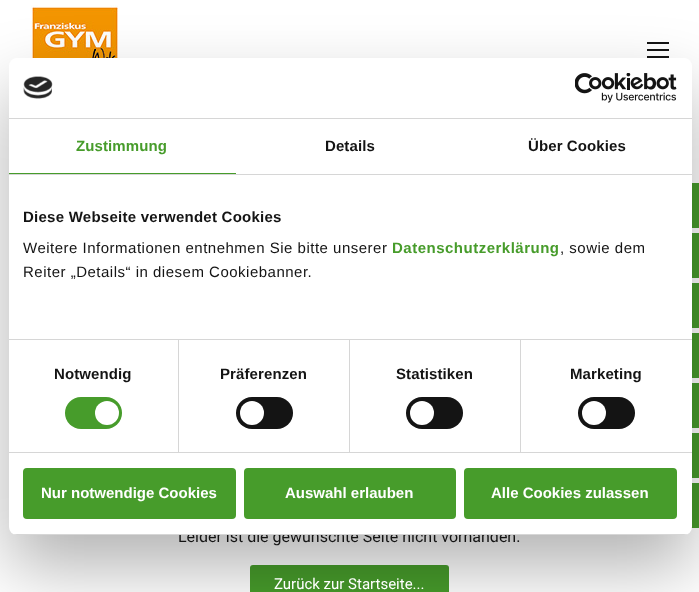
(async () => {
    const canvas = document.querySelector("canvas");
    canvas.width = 699;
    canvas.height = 592;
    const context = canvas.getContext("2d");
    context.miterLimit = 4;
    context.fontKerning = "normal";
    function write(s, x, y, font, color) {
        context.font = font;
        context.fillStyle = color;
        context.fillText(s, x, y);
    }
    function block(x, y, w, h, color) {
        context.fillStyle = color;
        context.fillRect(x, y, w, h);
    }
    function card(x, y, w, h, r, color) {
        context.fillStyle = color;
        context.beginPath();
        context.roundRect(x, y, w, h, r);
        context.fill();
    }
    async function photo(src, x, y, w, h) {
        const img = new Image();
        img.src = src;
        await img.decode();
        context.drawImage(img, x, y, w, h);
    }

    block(0, 0, 699, 592, "rgb(255, 255, 255)");
    block(692, 183, 7, 45, "rgb(71, 156, 43)");
    block(692, 233, 7, 45, "rgb(71, 156, 43)");
    block(692, 283, 7, 45, "rgb(71, 156, 43)");
    block(692, 333, 7, 45, "rgb(71, 156, 43)");
    block(692, 383, 7, 45, "rgb(71, 156, 43)");
    block(692, 433, 7, 45, "rgb(71, 156, 43)");
    block(691, 483, 8, 45, "rgb(71, 156, 43)");
    await photo("media/3.png", 30, 5, 88, 53);
    block(647, 42, 22, 2, "rgb(20, 20, 20)");
    block(647, 49, 22, 2, "rgb(20, 20, 20)");
    block(647, 56, 22, 2, "rgb(20, 20, 20)");
    card(250, 565, 199, 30, 3, "rgb(71, 156, 43)");
    context.fillStyle = "rgba(0, 0, 0, 0.3)";
    context.filter = "blur(34px)";
    context.beginPath();
    context.roundRect(9, 90, 683, 477, 8);
    context.fill();
    context.filter = "none";
    write("Leider ist die gewünschte Seite nicht vorhanden.", 178, 542, "16px Roboto", "rgb(20, 20, 20)");
    card(9, 58, 683, 477, 8, "rgb(255, 255, 255)");
    block(9, 118, 683, 1, "rgb(214, 214, 214)");
    await photo("media/1.png", 23, 76, 30, 23);
    await photo("media/2.png", 575, 73, 102, 30);
    block(9, 174, 683, 1, "rgb(214, 214, 214)");
    block(9, 173, 227, 1, "rgb(71, 156, 43)");
    context.letterSpacing = "0.1px";
    write("Zustimmung", 76, 151, "bold 15px Liberation Sans", "rgb(71, 156, 43)");
    write("Details", 325, 151, "bold 15px Liberation Sans", "rgb(20, 20, 20)");
    write("Über Cookies", 528, 151, "bold 15px Liberation Sans", "rgb(20, 20, 20)");
    block(9, 339, 683, 1, "rgb(214, 214, 214)");
    context.letterSpacing = "0.25px";
    write("Diese Webseite verwendet Cookies", 23, 222, "bold 15px Liberation Sans", "rgb(20, 20, 20)");
    context.letterSpacing = "0.5px";
    write("Weitere Informationen entnehmen Sie bitte unserer", 23, 253, "15px Liberation Sans", "rgb(20, 20, 20)");
    write("Datenschutzerklärung", 392, 253, "bold 15px Liberation Sans", "rgb(71, 156, 43)");
    write(", sowie dem", 560, 253, "15px Liberation Sans", "rgb(20, 20, 20)");
    write("Reiter „Details“ in diesem Cookiebanner.", 23, 277, "15px Liberation Sans", "rgb(20, 20, 20)");
    block(9, 452, 683, 1, "rgb(214, 214, 214)");
    block(178, 340, 1, 112, "rgb(214, 214, 214)");
    context.letterSpacing = "0.1px";
    write("Notwendig", 54, 379, "bold 15px Liberation Sans", "rgb(20, 20, 20)");
    card(65, 397, 57, 32, 16, "rgb(71, 156, 43)");
    context.fillStyle = "rgb(255, 255, 255)";
    context.beginPath();
    context.arc(107, 413, 12, 0, Math.PI * 2);
    context.fill();
    block(349, 340, 1, 112, "rgb(214, 214, 214)");
    write("Präferenzen", 220, 379, "bold 15px Liberation Sans", "rgb(20, 20, 20)");
    card(236, 397, 57, 32, 16, "rgb(20, 20, 20)");
    context.fillStyle = "rgb(255, 255, 255)";
    context.beginPath();
    context.arc(252, 413, 12, 0, Math.PI * 2);
    context.fill();
    block(520, 340, 1, 112, "rgb(214, 214, 214)");
    write("Statistiken", 396, 379, "bold 15px Liberation Sans", "rgb(20, 20, 20)");
    card(406, 397, 57, 32, 16, "rgb(20, 20, 20)");
    context.fillStyle = "rgb(255, 255, 255)";
    context.beginPath();
    context.arc(422, 413, 12, 0, Math.PI * 2);
    context.fill();
    write("Marketing", 570, 379, "bold 15px Liberation Sans", "rgb(20, 20, 20)");
    card(578, 397, 57, 32, 16, "rgb(20, 20, 20)");
    context.fillStyle = "rgb(255, 255, 255)";
    context.beginPath();
    context.arc(594, 413, 12, 0, Math.PI * 2);
    context.fill();
    context.save();
    context.beginPath();
    context.roundRect(9, 58, 683, 477, 8);
    context.clip();
    block(9, 534, 683, 1, "rgb(214, 214, 214)");
    context.restore();
    context.fillStyle = "rgb(71, 156, 43)";
    context.beginPath();
    context.roundRect(24, 469, 211, 49, 3);
    context.fill();
    context.strokeStyle = "rgb(71, 156, 43)";
    context.lineWidth = 2;
    context.stroke();
    context.letterSpacing = "0px";
    write("Nur notwendige Cookies", 41, 498, "bold 15px Liberation Sans", "rgb(255, 255, 255)");
    context.fillStyle = "rgb(71, 156, 43)";
    context.beginPath();
    context.roundRect(245, 469, 210, 49, 3);
    context.fill();
    context.stroke();
    write("Auswahl erlauben", 285, 498, "bold 15px Liberation Sans", "rgb(255, 255, 255)");
    context.fillStyle = "rgb(71, 156, 43)";
    context.beginPath();
    context.roundRect(465, 469, 211, 49, 3);
    context.fill();
    context.stroke();
    write("Alle Cookies zulassen", 491, 498, "bold 15px Liberation Sans", "rgb(255, 255, 255)");
    write("Zurück zur Startseite...", 274, 589, "15px Roboto", "rgb(255, 255, 255)");
})();
